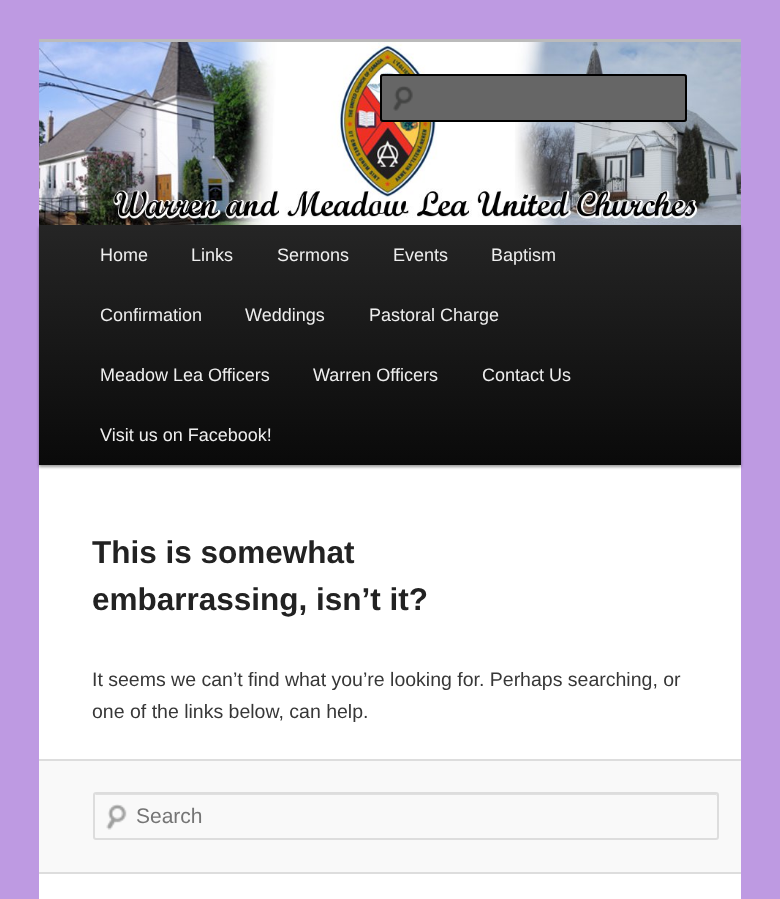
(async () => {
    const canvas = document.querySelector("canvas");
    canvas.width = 780;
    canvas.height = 899;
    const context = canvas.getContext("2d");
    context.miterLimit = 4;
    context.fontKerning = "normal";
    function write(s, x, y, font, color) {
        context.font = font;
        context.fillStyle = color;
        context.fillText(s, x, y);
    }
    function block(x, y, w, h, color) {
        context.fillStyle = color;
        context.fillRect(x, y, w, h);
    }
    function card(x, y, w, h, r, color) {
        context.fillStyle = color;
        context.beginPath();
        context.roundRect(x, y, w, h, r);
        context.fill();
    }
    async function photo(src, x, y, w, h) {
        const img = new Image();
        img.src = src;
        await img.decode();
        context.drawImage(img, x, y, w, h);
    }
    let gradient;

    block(0, 0, 780, 899, "rgb(190, 154, 226)");
    block(39, 465, 702, 434, "rgb(255, 255, 255)");
    block(39, 39, 702, 3, "rgb(187, 187, 187)");
    context.fillStyle = "rgba(0, 0, 0, 0.4)";
    context.filter = "blur(1.5px)";
    context.beginPath();
    context.rect(39, 227, 702, 240);
    context.fill();
    context.filter = "none";
    await photo("media/1.png", 39, 42, 702, 183);
    card(380, 74, 307, 48, 3, "rgb(102, 102, 102)");
    await photo("media/2.png", 393, 86, 20, 25);
    context.beginPath();
    context.roundRect(381, 75, 305, 46, 2);
    context.strokeStyle = "rgb(0, 0, 0)";
    context.lineWidth = 2;
    context.stroke();
    gradient = context.createLinearGradient(390, 225, 390, 465);
    gradient.addColorStop(0, "rgb(37, 37, 37)");
    gradient.addColorStop(1, "rgb(10, 10, 10)");
    context.fillStyle = gradient;
    context.fillRect(39, 225, 702, 240);
    write("Home", 100, 261, "18px Liberation Sans", "rgb(238, 238, 238)");
    write("Links", 191, 261, "18px Liberation Sans", "rgb(238, 238, 238)");
    write("Sermons", 277, 261, "18px Liberation Sans", "rgb(238, 238, 238)");
    write("Events", 393, 261, "18px Liberation Sans", "rgb(238, 238, 238)");
    write("Baptism", 491, 261, "18px Liberation Sans", "rgb(238, 238, 238)");
    write("Confirmation", 100, 321, "18px Liberation Sans", "rgb(238, 238, 238)");
    write("Weddings", 245, 321, "18px Liberation Sans", "rgb(238, 238, 238)");
    write("Pastoral Charge", 369, 321, "18px Liberation Sans", "rgb(238, 238, 238)");
    write("Meadow Lea Officers", 100, 381, "18px Liberation Sans", "rgb(238, 238, 238)");
    write("Warren Officers", 313, 381, "18px Liberation Sans", "rgb(238, 238, 238)");
    write("Contact Us", 482, 381, "18px Liberation Sans", "rgb(238, 238, 238)");
    write("Visit us on Facebook!", 100, 441, "18px Liberation Sans", "rgb(238, 238, 238)");
    write("This is somewhat", 92, 563, "bold 31.5px Liberation Sans", "rgb(34, 34, 34)");
    write("embarrassing, isn’t it?", 92, 610, "bold 31.5px Liberation Sans", "rgb(34, 34, 34)");
    write("It seems we can’t find what you’re looking for. Perhaps searching, or", 92, 686, "19.5px Liberation Sans", "rgb(55, 55, 55)");
    write("one of the links below, can help.", 92, 718, "19.5px Liberation Sans", "rgb(55, 55, 55)");
    block(39, 761, 702, 111, "rgb(249, 249, 249)");
    block(39, 759, 702, 2, "rgb(221, 221, 221)");
    block(39, 872, 702, 2, "rgb(221, 221, 221)");
    await photo("media/3.png", 106, 804, 21, 26);
    context.fillStyle = "rgb(224, 224, 224)";
    context.beginPath();
    context.moveTo(96, 795);
    context.lineTo(716, 795);
    context.lineTo(717, 796);
    context.lineTo(717, 795);
    context.lineTo(716, 794);
    context.lineTo(96, 794);
    context.bezierCurveTo(96, 794, 95, 795, 95, 795);
    context.closePath();
    context.fill();
    context.beginPath();
    context.roundRect(94, 793, 624, 46, 2);
    context.strokeStyle = "rgb(221, 221, 221)";
    context.stroke();
    write("Search", 136, 823, "21px Liberation Sans", "rgb(117, 117, 117)");
})();
